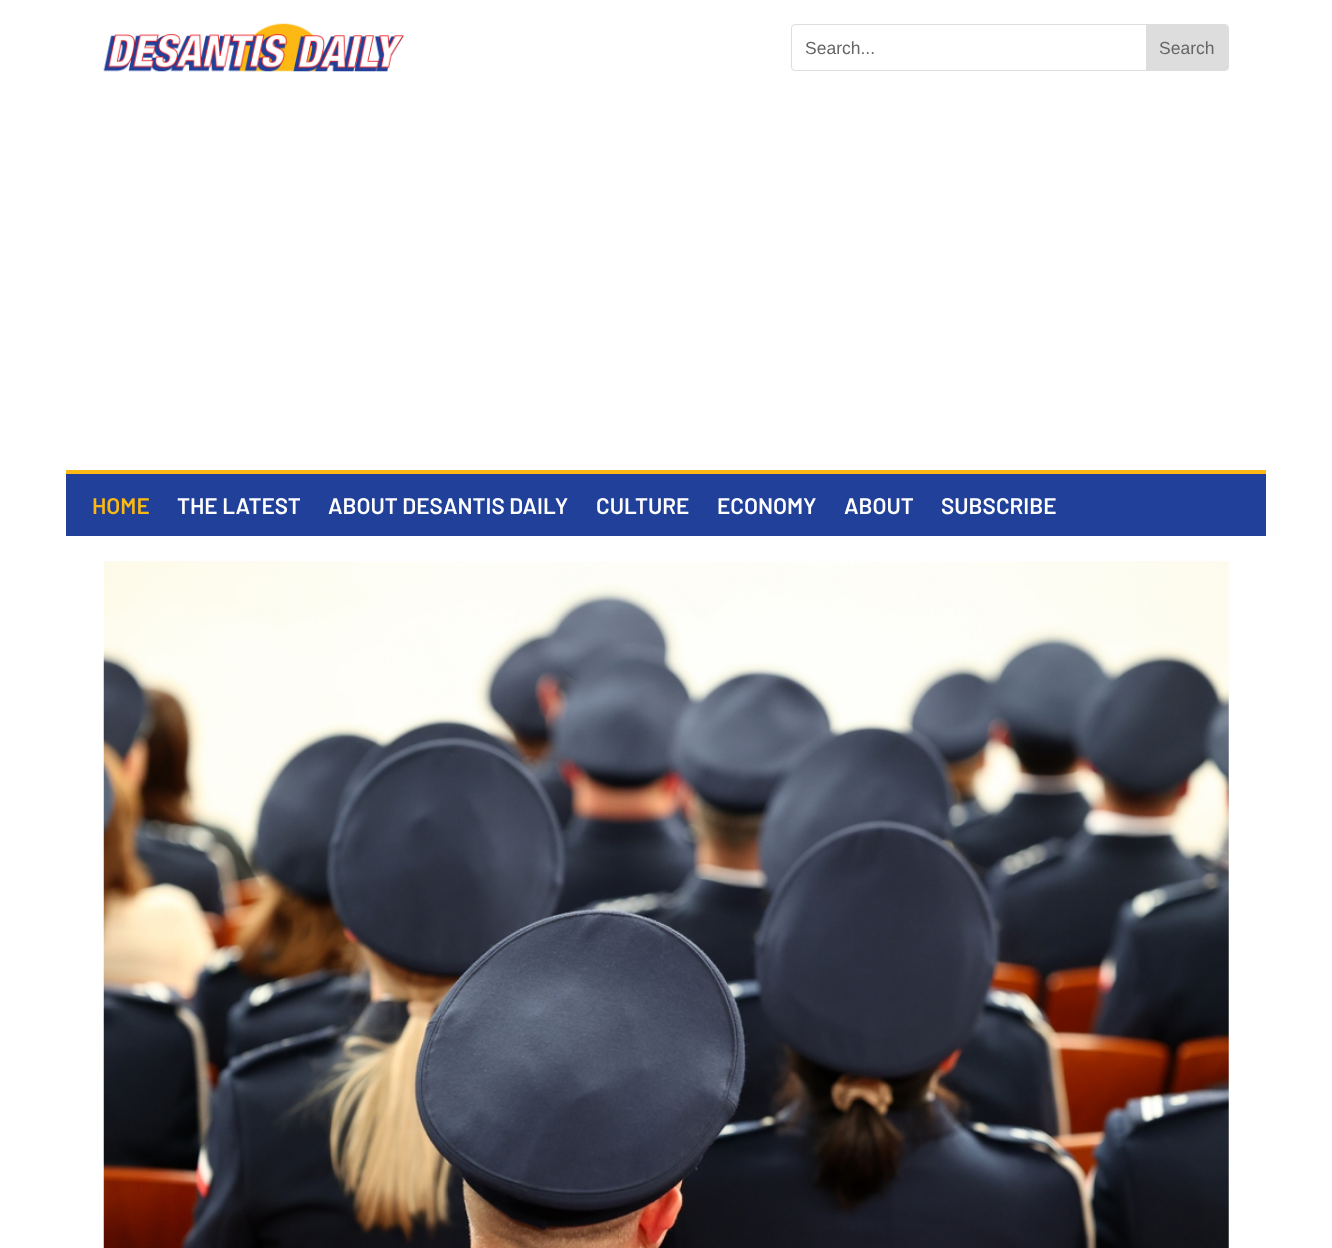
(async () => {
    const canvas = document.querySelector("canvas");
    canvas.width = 1332;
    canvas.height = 1248;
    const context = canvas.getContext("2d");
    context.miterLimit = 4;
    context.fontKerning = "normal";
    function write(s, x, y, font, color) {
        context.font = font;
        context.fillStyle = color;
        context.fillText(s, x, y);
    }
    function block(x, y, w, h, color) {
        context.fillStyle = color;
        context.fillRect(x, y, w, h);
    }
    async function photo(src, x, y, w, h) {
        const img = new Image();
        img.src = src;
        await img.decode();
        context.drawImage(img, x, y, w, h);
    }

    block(0, 0, 1332, 1248, "rgb(255, 255, 255)");
    await photo("media/1.png", 103, 23, 301, 49);
    context.beginPath();
    context.roundRect(791.5, 24.5, 437, 46, 3.5);
    context.strokeStyle = "rgb(221, 221, 221)";
    context.stroke();
    write("Search...", 805, 54, "17.5px Liberation Sans", "rgb(102, 102, 102)");
    context.fillStyle = "rgb(221, 221, 221)";
    context.beginPath();
    context.roundRect(1146, 25, 82, 45, [0, 2.5, 2.5, 0]);
    context.fill();
    write("Search", 1159, 54, "17.5px Liberation Sans", "rgb(102, 102, 102)");
    block(66, 470, 1200, 4, "rgb(253, 184, 19)");
    block(66, 474, 1200, 62, "rgb(32, 64, 154)");
    write("HOME", 92, 514, "600 22.5px Barlow", "rgb(253, 184, 19)");
    write("THE LATEST", 177, 514, "600 22.5px Barlow", "rgb(255, 255, 255)");
    write("ABOUT DESANTIS DAILY", 328, 514, "600 22.5px Barlow", "rgb(255, 255, 255)");
    write("CULTURE", 596, 514, "600 22.5px Barlow", "rgb(255, 255, 255)");
    write("ECONOMY", 717, 514, "600 22.5px Barlow", "rgb(255, 255, 255)");
    write("ABOUT", 844, 514, "600 22.5px Barlow", "rgb(255, 255, 255)");
    write("SUBSCRIBE", 941, 514, "600 22.5px Barlow", "rgb(255, 255, 255)");
    await photo("media/2.png", 103, 561, 1126, 687);
})();
